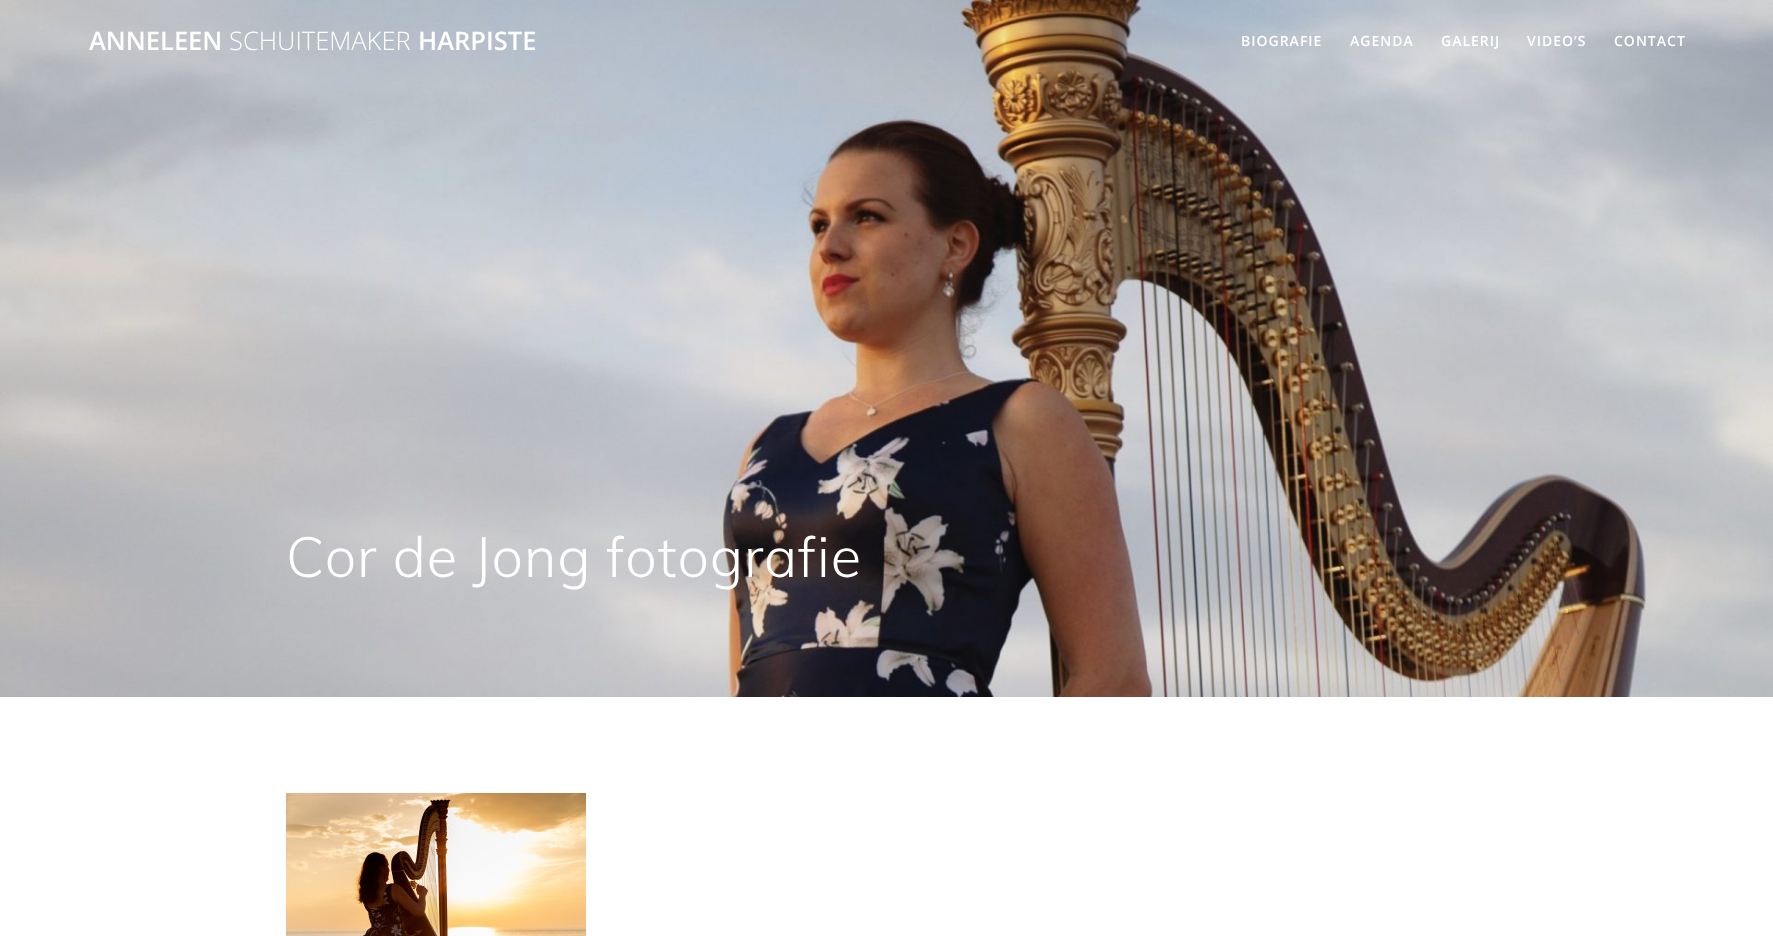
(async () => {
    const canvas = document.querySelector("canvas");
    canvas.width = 1773;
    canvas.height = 936;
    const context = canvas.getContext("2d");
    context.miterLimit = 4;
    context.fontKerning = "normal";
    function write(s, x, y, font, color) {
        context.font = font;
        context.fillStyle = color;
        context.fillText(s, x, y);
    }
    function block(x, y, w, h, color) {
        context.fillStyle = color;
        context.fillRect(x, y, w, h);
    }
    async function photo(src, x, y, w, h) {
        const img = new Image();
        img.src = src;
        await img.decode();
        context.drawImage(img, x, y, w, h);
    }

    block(0, 0, 1773, 936, "rgb(255, 255, 255)");
    await photo("media/1.png", 0, 0, 1773, 697);
    write("ANNELEEN", 89, 50, "600 25.5px Open Sans", "rgb(255, 255, 255)");
    write("SCHUITEMAKER", 229, 50, "300 25.5px Open Sans", "rgb(255, 255, 255)");
    write("HARPISTE", 418, 50, "600 25.5px Open Sans", "rgb(255, 255, 255)");
    context.letterSpacing = "1px";
    write("BIOGRAFIE", 1241, 46, "600 14px Open Sans", "rgb(255, 255, 255)");
    write("AGENDA", 1350, 46, "600 14px Open Sans", "rgb(255, 255, 255)");
    write("GALERIJ", 1441, 46, "600 14px Open Sans", "rgb(255, 255, 255)");
    write("VIDEO’S", 1527, 46, "600 14px Open Sans", "rgb(255, 255, 255)");
    write("CONTACT", 1614, 46, "600 14px Open Sans", "rgb(255, 255, 255)");
    context.letterSpacing = "0.9px";
    write("Cor de Jong fotografie", 286, 577, "300 56px Muli", "rgb(255, 255, 255)");
    await photo("media/2.png", 286, 793, 300, 143);
})();
